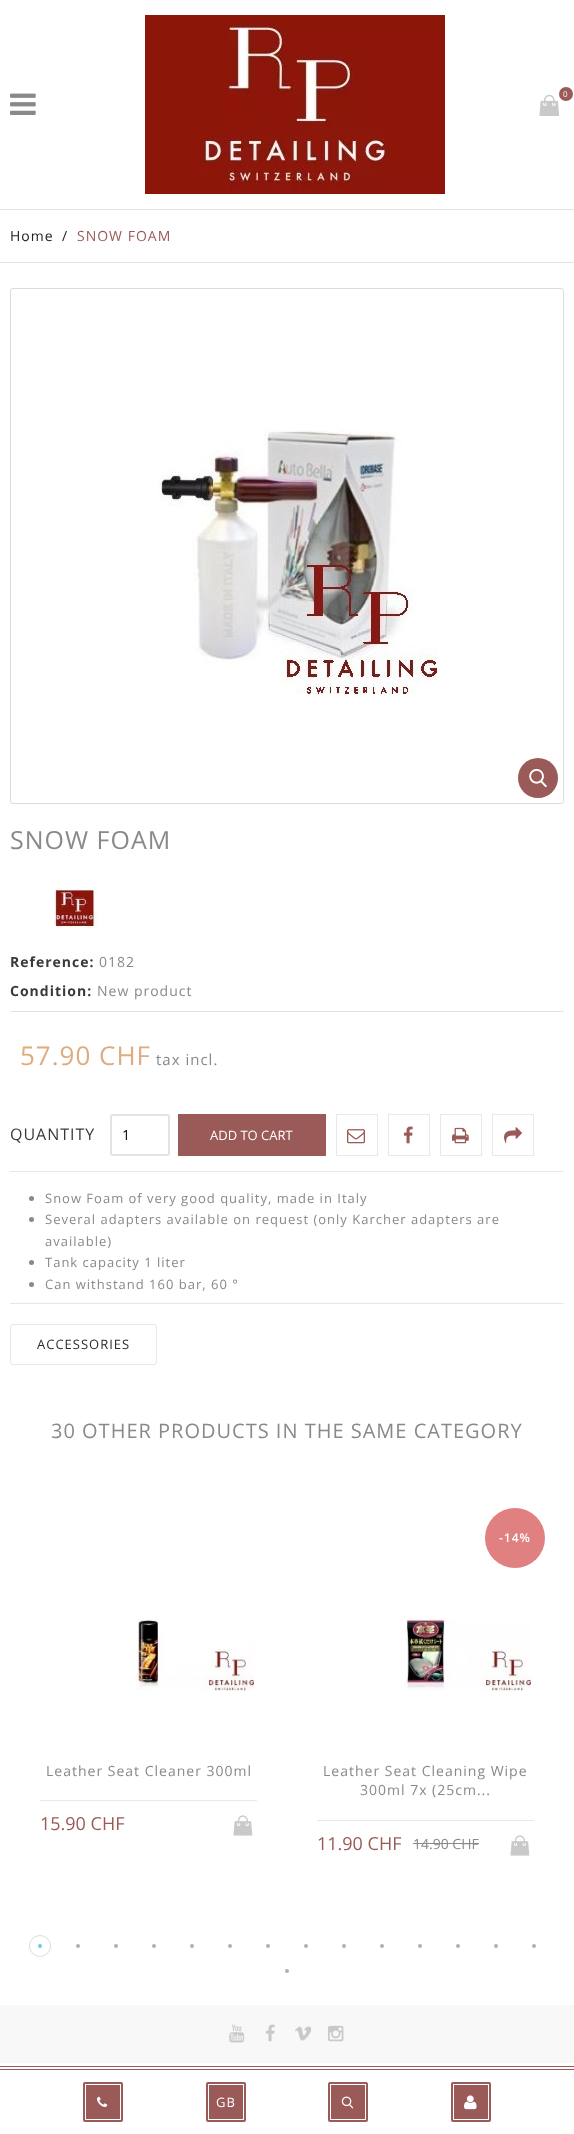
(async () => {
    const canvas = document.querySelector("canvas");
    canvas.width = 574;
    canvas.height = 2134;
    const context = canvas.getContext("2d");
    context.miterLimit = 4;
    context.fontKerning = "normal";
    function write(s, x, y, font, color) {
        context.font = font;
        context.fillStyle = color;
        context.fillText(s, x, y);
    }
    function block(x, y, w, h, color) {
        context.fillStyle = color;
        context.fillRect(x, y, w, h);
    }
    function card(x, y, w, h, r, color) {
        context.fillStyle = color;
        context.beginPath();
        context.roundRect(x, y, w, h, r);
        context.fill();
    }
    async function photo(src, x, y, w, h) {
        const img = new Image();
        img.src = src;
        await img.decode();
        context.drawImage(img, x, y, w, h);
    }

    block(0, 0, 574, 2134, "rgb(255, 255, 255)");
    await photo("media/1.png", 10, 93, 26, 22);
    await photo("media/2.png", 145, 15, 300, 179);
    await photo("media/3.png", 539, 94, 21, 22);
    context.fillStyle = "rgb(154, 90, 88)";
    context.beginPath();
    context.arc(566, 94, 7, 0, Math.PI * 2);
    context.fill();
    context.letterSpacing = "1px";
    write("0", 563, 97, "8px Open Sans", "rgb(255, 255, 255)");
    block(0, 2066, 574, 1, "rgb(154, 90, 88)");
    block(0, 2069, 574, 1, "rgb(154, 90, 88)");
    card(83, 2082, 40, 40, 2, "rgb(154, 90, 88)");
    await photo("media/4.png", 97, 2096, 11, 11);
    context.strokeStyle = "rgb(255, 255, 255)";
    context.strokeRect(85.5, 2084.5, 35, 35);
    card(206, 2082, 40, 40, 2, "rgb(154, 90, 88)");
    context.strokeRect(208.5, 2084.5, 35, 35);
    write("GB", 216, 2107, "13px Open Sans", "rgb(255, 255, 255)");
    card(328, 2082, 40, 40, 2, "rgb(154, 90, 88)");
    await photo("media/5.png", 341, 2096, 13, 13);
    context.strokeRect(330.5, 2084.5, 35, 35);
    card(451, 2082, 40, 40, 2, "rgb(154, 90, 88)");
    await photo("media/6.png", 464, 2095, 13, 15);
    context.strokeRect(453.5, 2084.5, 35, 35);
    block(0, 209, 574, 1, "rgb(227, 227, 227)");
    block(0, 262, 574, 1, "rgb(227, 227, 227)");
    write("Home", 10, 241, "14px Open Sans", "rgb(34, 34, 34)");
    write("/", 62, 241, "14px Open Sans", "rgb(34, 34, 34)");
    write("SNOW FOAM", 77, 241, "14px Open Sans", "rgb(154, 90, 88)");
    context.beginPath();
    context.roundRect(10.5, 288.5, 553, 515, 2.5);
    context.strokeStyle = "rgb(219, 219, 219)";
    context.stroke();
    await photo("media/7.png", 157, 430, 281, 265);
    context.beginPath();
    context.arc(538, 778, 20, 0, Math.PI * 2);
    context.fill();
    await photo("media/8.png", 529, 768, 18, 20);
    write("SNOW FOAM", 10, 849, "25px Open Sans", "rgb(137, 137, 137)");
    await photo("media/9.png", 54, 889, 44, 40);
    write("Reference:", 10, 967, "bold 14px Open Sans", "rgb(59, 58, 54)");
    write("0182", 99, 967, "14px Open Sans", "rgb(137, 137, 137)");
    write("Condition:", 10, 996, "bold 14px Open Sans", "rgb(59, 58, 54)");
    write("New product", 97, 996, "14px Open Sans", "rgb(137, 137, 137)");
    block(10, 1011, 554, 1, "rgb(227, 227, 227)");
    write("57.90 CHF", 20, 1065, "26px Open Sans", "rgb(223, 172, 127)");
    write("tax incl.", 156, 1065, "15px Open Sans", "rgb(137, 137, 137)");
    write("QUANTITY", 10, 1140, "16px Open Sans", "rgb(59, 58, 54)");
    context.beginPath();
    context.roundRect(111, 1115, 58, 40, 2);
    context.strokeStyle = "rgb(227, 227, 227)";
    context.lineWidth = 2;
    context.stroke();
    context.letterSpacing = "0px";
    write("1", 122, 1140, "14px Open Sans", "rgb(0, 0, 0)");
    block(178, 1114, 148, 42, "rgb(154, 90, 88)");
    write("ADD TO CART", 210, 1140, "13px Open Sans", "rgb(255, 255, 255)");
    context.strokeStyle = "rgb(233, 233, 233)";
    context.lineWidth = 1;
    context.strokeRect(336.5, 1114.5, 41, 41);
    await photo("media/10.png", 347, 1129, 18, 15);
    context.strokeRect(388.5, 1114.5, 41, 41);
    await photo("media/11.png", 403, 1126, 10, 18);
    context.strokeRect(440.5, 1114.5, 41, 41);
    await photo("media/12.png", 452, 1127, 17, 17);
    context.strokeRect(492.5, 1114.5, 41, 41);
    await photo("media/13.png", 504, 1127, 18, 17);
    block(10, 1171, 554, 1, "rgb(231, 231, 231)");
    block(10, 1303, 554, 1, "rgb(231, 231, 231)");
    context.fillStyle = "rgb(137, 137, 137)";
    context.beginPath();
    context.arc(31.5, 1198.5, 2.5, 0, Math.PI * 2);
    context.fill();
    context.letterSpacing = "1px";
    write("Snow Foam of very good quality, made in Italy", 45, 1203, "13px Open Sans", "rgb(137, 137, 137)");
    context.beginPath();
    context.arc(31.5, 1219.5, 2.5, 0, Math.PI * 2);
    context.fill();
    write("Several adapters available on request (only Karcher adapters are", 45, 1224, "13px Open Sans", "rgb(137, 137, 137)");
    write("available)", 45, 1246, "13px Open Sans", "rgb(137, 137, 137)");
    context.beginPath();
    context.arc(31.5, 1262.5, 2.5, 0, Math.PI * 2);
    context.fill();
    write("Tank capacity 1 liter", 45, 1267, "13px Open Sans", "rgb(137, 137, 137)");
    context.beginPath();
    context.arc(31.5, 1284.5, 2.5, 0, Math.PI * 2);
    context.fill();
    write("Can withstand 160 bar, 60 °", 45, 1289, "13px Open Sans", "rgb(137, 137, 137)");
    context.beginPath();
    context.roundRect(10.5, 1324.5, 146, 40, 2.5);
    context.strokeStyle = "rgb(231, 231, 231)";
    context.stroke();
    write("ACCESSORIES", 37, 1349, "13px Open Sans", "rgb(45, 45, 45)");
    write("30 OTHER PRODUCTS IN THE SAME CATEGORY", 51, 1438, "20px Open Sans", "rgb(137, 137, 137)");
    await photo("media/14.png", 136, 1619, 118, 72);
    write("Leather Seat Cleaner 300ml", 46, 1776, "14px Open Sans", "rgb(137, 137, 137)");
    block(40, 1800, 217, 1, "rgb(233, 233, 233)");
    context.letterSpacing = "0px";
    write("15.90 CHF", 40, 1830, "18px Open Sans", "rgb(154, 90, 88)");
    await photo("media/15.png", 233, 1815, 20, 21);
    context.fillStyle = "rgb(224, 128, 128)";
    context.beginPath();
    context.arc(515, 1538, 30, 0, Math.PI * 2);
    context.fill();
    context.letterSpacing = "1px";
    write("-14%", 499, 1542, "600 12px Open Sans", "rgb(255, 255, 255)");
    await photo("media/16.png", 405, 1618, 126, 73);
    write("Leather Seat Cleaning Wipe", 323, 1776, "14px Open Sans", "rgb(137, 137, 137)");
    write("300ml 7x (25cm...", 360, 1795, "14px Open Sans", "rgb(137, 137, 137)");
    block(317, 1820, 217, 1, "rgb(233, 233, 233)");
    context.letterSpacing = "0px";
    write("11.90 CHF", 317, 1850, "18px Open Sans", "rgb(154, 90, 88)");
    write("14.90 CHF", 413, 1849, "14px Open Sans", "rgb(137, 137, 137)");
    block(413, 1843, 66, 1, "rgb(137, 137, 137)");
    await photo("media/15.png", 510, 1835, 20, 21);
    context.beginPath();
    context.arc(40, 1946, 10.5, 0, Math.PI * 2);
    context.strokeStyle = "rgb(221, 221, 221)";
    context.stroke();
    context.fillStyle = "rgb(118, 196, 229)";
    context.beginPath();
    context.arc(40, 1946, 2, 0, Math.PI * 2);
    context.fill();
    context.fillStyle = "rgb(176, 176, 176)";
    context.beginPath();
    context.arc(78, 1946, 2, 0, Math.PI * 2);
    context.fill();
    context.beginPath();
    context.arc(116, 1946, 2, 0, Math.PI * 2);
    context.fill();
    context.beginPath();
    context.arc(154, 1946, 2, 0, Math.PI * 2);
    context.fill();
    context.beginPath();
    context.arc(192, 1946, 2, 0, Math.PI * 2);
    context.fill();
    context.beginPath();
    context.arc(230, 1946, 2, 0, Math.PI * 2);
    context.fill();
    context.beginPath();
    context.arc(268, 1946, 2, 0, Math.PI * 2);
    context.fill();
    context.beginPath();
    context.arc(306, 1946, 2, 0, Math.PI * 2);
    context.fill();
    context.beginPath();
    context.arc(344, 1946, 2, 0, Math.PI * 2);
    context.fill();
    context.beginPath();
    context.arc(382, 1946, 2, 0, Math.PI * 2);
    context.fill();
    context.beginPath();
    context.arc(420, 1946, 2, 0, Math.PI * 2);
    context.fill();
    context.beginPath();
    context.arc(458, 1946, 2, 0, Math.PI * 2);
    context.fill();
    context.beginPath();
    context.arc(496, 1946, 2, 0, Math.PI * 2);
    context.fill();
    context.beginPath();
    context.arc(534, 1946, 2, 0, Math.PI * 2);
    context.fill();
    context.beginPath();
    context.arc(287, 1971, 2, 0, Math.PI * 2);
    context.fill();
    block(0, 2005, 574, 58, "rgb(248, 248, 248)");
    await photo("media/17.png", 229, 2024, 16, 19);
    await photo("media/18.png", 266, 2024, 9, 18);
    await photo("media/19.png", 295, 2026, 17, 15);
    await photo("media/20.png", 328, 2025, 16, 17);
})();
